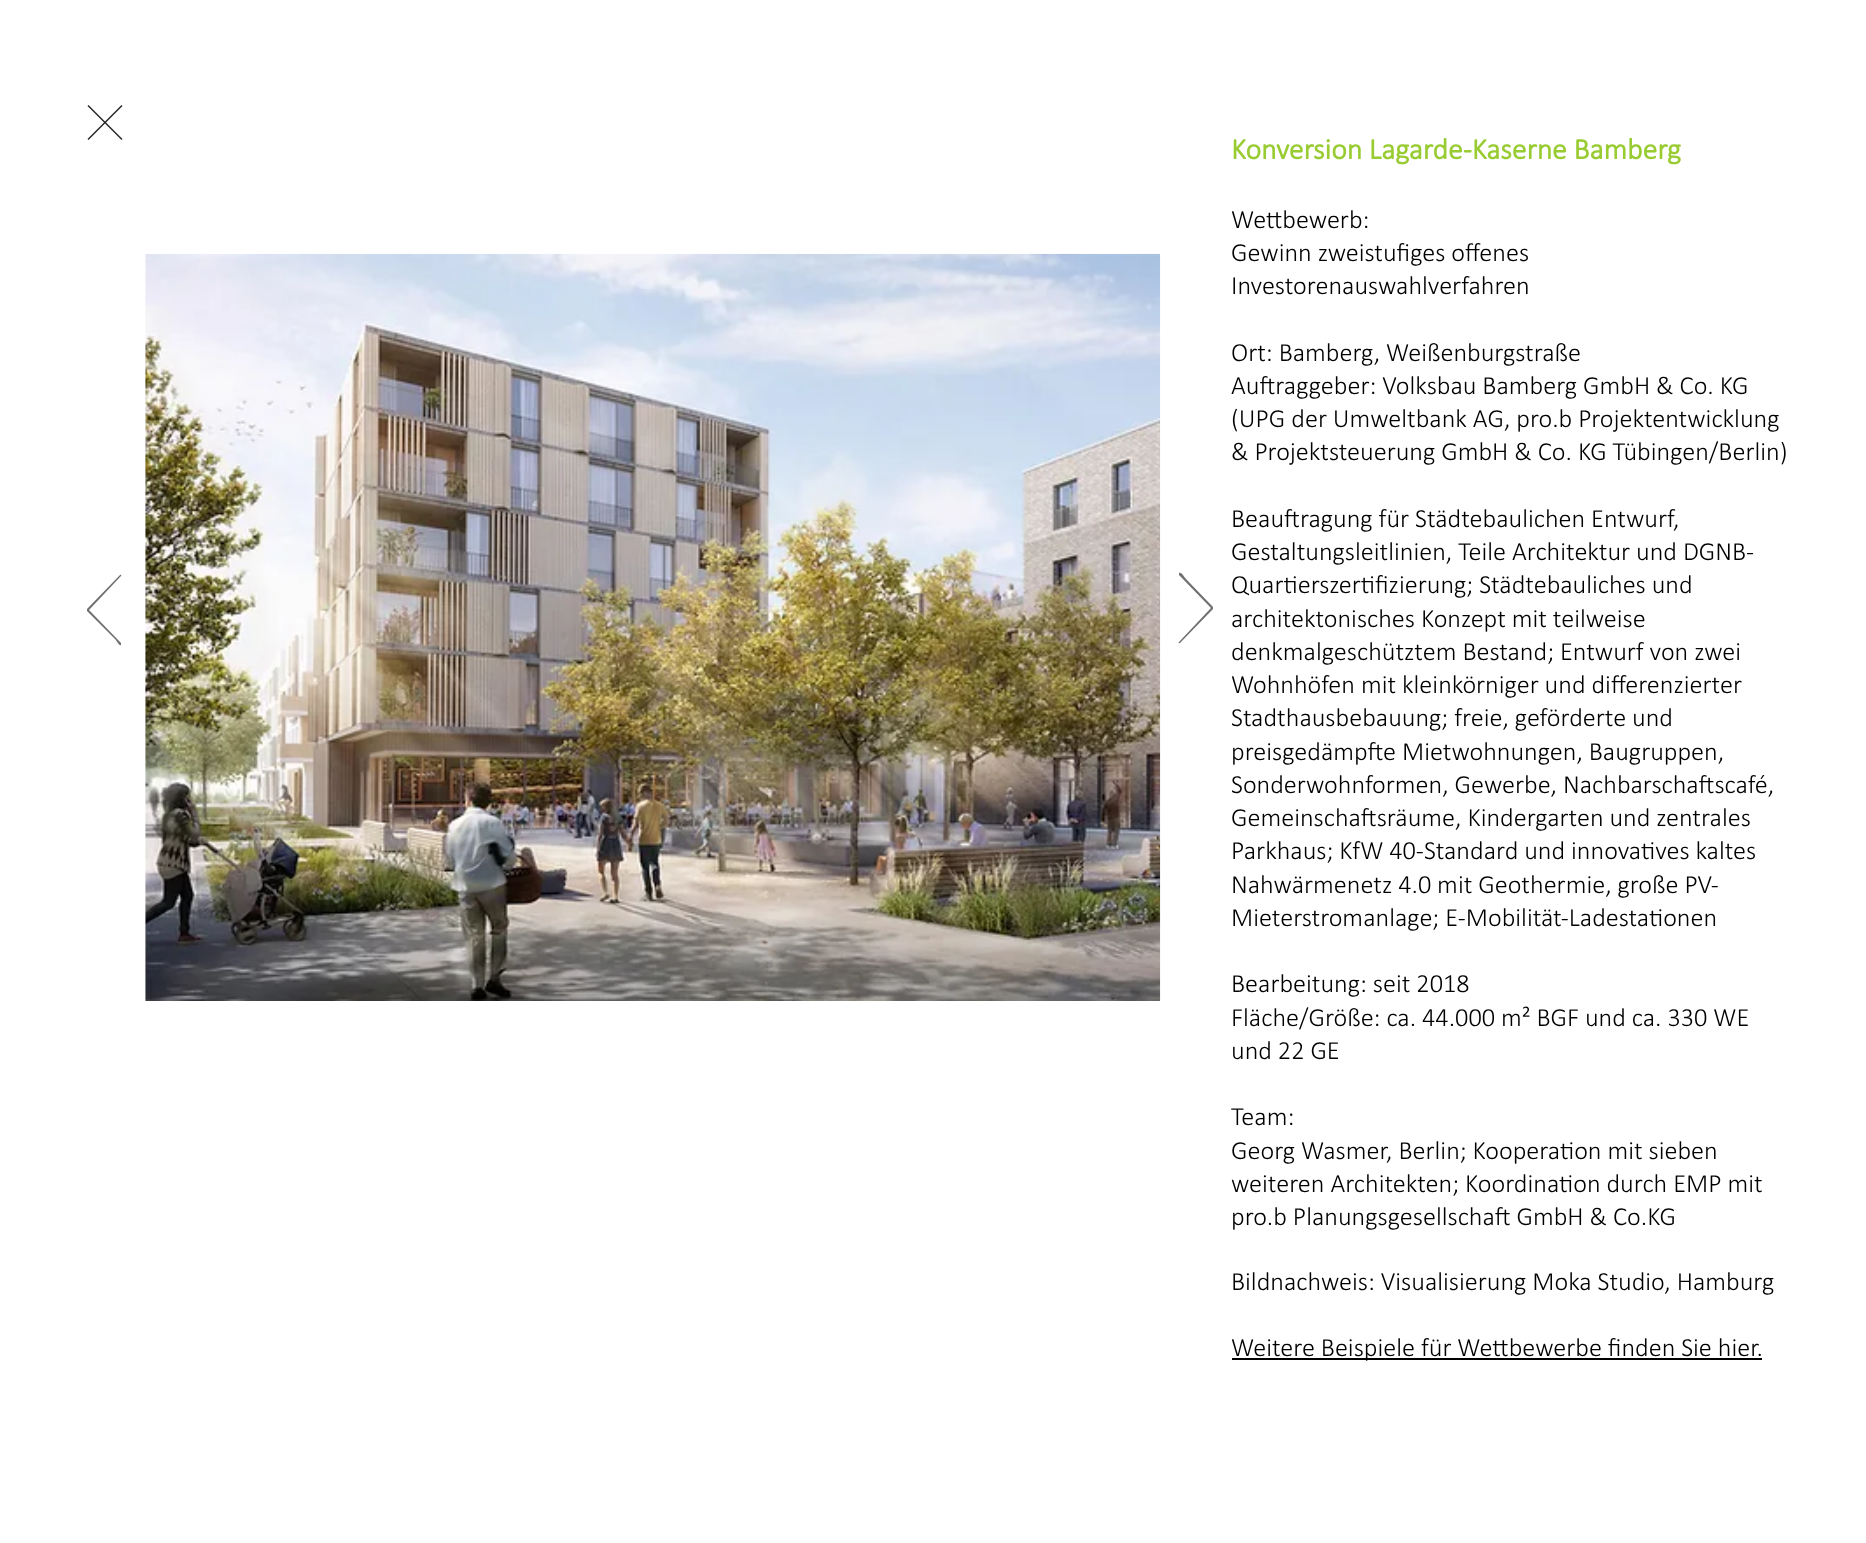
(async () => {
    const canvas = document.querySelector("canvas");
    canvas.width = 1866;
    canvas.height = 1543;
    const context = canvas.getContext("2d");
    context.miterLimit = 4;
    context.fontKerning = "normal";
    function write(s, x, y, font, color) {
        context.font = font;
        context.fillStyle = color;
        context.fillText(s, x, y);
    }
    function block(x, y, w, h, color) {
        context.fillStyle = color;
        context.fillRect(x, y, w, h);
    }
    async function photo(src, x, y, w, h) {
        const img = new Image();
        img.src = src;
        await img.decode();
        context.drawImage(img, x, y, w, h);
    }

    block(0, 0, 1866, 1543, "rgb(255, 255, 255)");
    context.fillStyle = "rgb(36, 35, 35)";
    context.beginPath();
    context.moveTo(122.5, 139);
    context.lineTo(106, 122.5);
    context.lineTo(122.5, 106);
    context.lineTo(121.5, 105);
    context.lineTo(105, 121.5);
    context.lineTo(88.5, 105);
    context.lineTo(87.5, 106);
    context.lineTo(104, 122.5);
    context.lineTo(87.5, 139);
    context.lineTo(88.5, 140);
    context.lineTo(105, 123.5);
    context.lineTo(121.5, 140);
    context.closePath();
    context.fill();
    context.fillStyle = "rgb(113, 112, 112)";
    context.beginPath();
    context.moveTo(121, 643);
    context.lineTo(89, 610);
    context.lineTo(121, 576);
    context.bezierCurveTo(122, 576, 121, 574, 120, 575);
    context.lineTo(87, 609);
    context.lineTo(87, 611);
    context.lineTo(115, 639);
    context.bezierCurveTo(117, 641, 119, 646, 121, 645);
    context.closePath();
    context.fill();
    await photo("media/1.png", 145, 253, 1016, 748);
    context.beginPath();
    context.moveTo(1179, 575);
    context.lineTo(1211, 608);
    context.lineTo(1179, 642);
    context.bezierCurveTo(1178, 642, 1179, 644, 1180, 643);
    context.lineTo(1213, 609);
    context.lineTo(1213, 607);
    context.lineTo(1186, 579);
    context.bezierCurveTo(1184, 577, 1182, 572, 1179, 573);
    context.closePath();
    context.fill();
    write("Konversion Lagarde-Kaserne Bamberg", 1231, 159, "bold 29.75px Calibri", "rgb(153, 204, 51)");
    write("Wettbewerb:", 1231, 228, "300 26.25px Calibri", "rgb(0, 0, 0)");
    write("Gewinn zweistufiges offenes", 1231, 261, "300 26.25px Calibri", "rgb(0, 0, 0)");
    write("Investorenauswahlverfahren", 1231, 294, "300 26.25px Calibri", "rgb(0, 0, 0)");
    write("Ort: Bamberg, Weißenburgstraße", 1231, 361, "300 26.25px Calibri", "rgb(0, 0, 0)");
    write("Auftraggeber: Volksbau Bamberg GmbH & Co. KG", 1231, 394, "300 26.25px Calibri", "rgb(0, 0, 0)");
    write("(UPG der Umweltbank AG, pro.b Projektentwicklung", 1231, 427, "300 26.25px Calibri", "rgb(0, 0, 0)");
    write("& Projektsteuerung GmbH & Co. KG Tübingen/Berlin)", 1231, 460, "300 26.25px Calibri", "rgb(0, 0, 0)");
    write("Beauftragung für Städtebaulichen Entwurf,", 1231, 527, "300 26.25px Calibri", "rgb(0, 0, 0)");
    write("Gestaltungsleitlinien, Teile Architektur und DGNB-", 1231, 560, "300 26.25px Calibri", "rgb(0, 0, 0)");
    write("Quartierszertifizierung; Städtebauliches und", 1231, 593, "300 26.25px Calibri", "rgb(0, 0, 0)");
    write("architektonisches Konzept mit teilweise", 1231, 627, "300 26.25px Calibri", "rgb(0, 0, 0)");
    write("denkmalgeschütztem Bestand; Entwurf von zwei", 1231, 660, "300 26.25px Calibri", "rgb(0, 0, 0)");
    write("Wohnhöfen mit kleinkörniger und differenzierter", 1231, 693, "300 26.25px Calibri", "rgb(0, 0, 0)");
    write("Stadthausbebauung; freie, geförderte und", 1231, 726, "300 26.25px Calibri", "rgb(0, 0, 0)");
    write("preisgedämpfte Mietwohnungen, Baugruppen,", 1231, 760, "300 26.25px Calibri", "rgb(0, 0, 0)");
    write("Sonderwohnformen, Gewerbe, Nachbarschaftscafé,", 1231, 793, "300 26.25px Calibri", "rgb(0, 0, 0)");
    write("Gemeinschaftsräume, Kindergarten und zentrales", 1231, 826, "300 26.25px Calibri", "rgb(0, 0, 0)");
    write("Parkhaus; KfW 40-Standard und innovatives kaltes", 1231, 859, "300 26.25px Calibri", "rgb(0, 0, 0)");
    write("Nahwärmenetz 4.0 mit Geothermie, große PV-", 1231, 893, "300 26.25px Calibri", "rgb(0, 0, 0)");
    write("Mieterstromanlage; E-Mobilität-Ladestationen", 1231, 926, "300 26.25px Calibri", "rgb(0, 0, 0)");
    write("Bearbeitung: seit 2018", 1231, 992, "300 26.25px Calibri", "rgb(0, 0, 0)");
    write("Fläche/Größe: ca. 44.000 m² BGF und ca. 330 WE", 1231, 1026, "300 26.25px Calibri", "rgb(0, 0, 0)");
    write("und 22 GE", 1231, 1059, "300 26.25px Calibri", "rgb(0, 0, 0)");
    write("Team:", 1231, 1125, "300 26.25px Calibri", "rgb(0, 0, 0)");
    write("Georg Wasmer, Berlin; Kooperation mit sieben", 1231, 1159, "300 26.25px Calibri", "rgb(0, 0, 0)");
    write("weiteren Architekten; Koordination durch EMP mit", 1231, 1192, "300 26.25px Calibri", "rgb(0, 0, 0)");
    write("pro.b Planungsgesellschaft GmbH & Co.KG", 1231, 1225, "300 26.25px Calibri", "rgb(0, 0, 0)");
    write("Bildnachweis: Visualisierung Moka Studio, Hamburg", 1231, 1290, "300 26.25px Calibri", "rgb(0, 0, 0)");
    block(1232, 1358, 530, 2, "rgb(0, 0, 0)");
    write("Weitere Beispiele für Wettbewerbe finden Sie hier.", 1231, 1356, "300 26.25px Calibri", "rgb(0, 0, 0)");
})();
